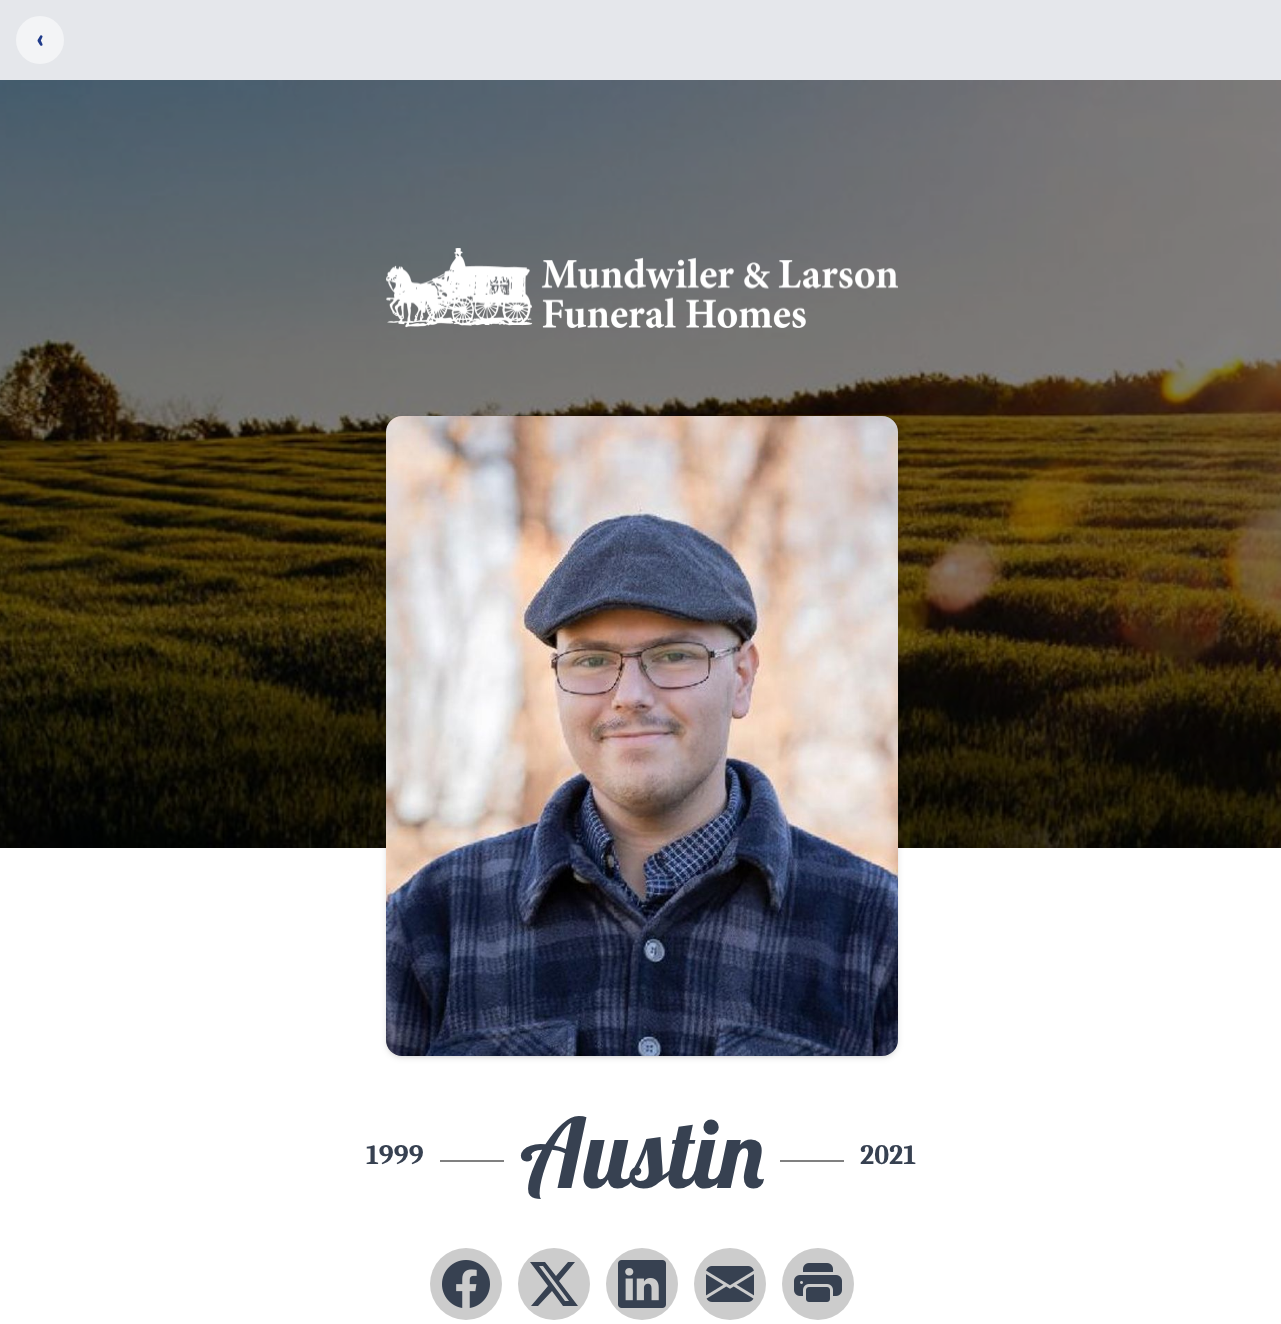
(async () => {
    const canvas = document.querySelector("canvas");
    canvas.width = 1281;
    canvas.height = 1324;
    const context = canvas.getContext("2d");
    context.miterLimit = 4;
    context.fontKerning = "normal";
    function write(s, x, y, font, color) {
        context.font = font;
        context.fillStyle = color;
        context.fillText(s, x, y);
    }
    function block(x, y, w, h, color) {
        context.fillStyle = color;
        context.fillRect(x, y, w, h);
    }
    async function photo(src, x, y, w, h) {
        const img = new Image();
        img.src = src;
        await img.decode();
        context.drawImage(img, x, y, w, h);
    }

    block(0, 0, 1281, 1324, "rgb(255, 255, 255)");
    block(0, 0, 1281, 80, "rgb(229, 231, 235)");
    context.fillStyle = "rgb(243, 244, 246)";
    context.beginPath();
    context.arc(40, 40, 24, 0, Math.PI * 2);
    context.fill();
    write("‹", 36, 48, "bold 28px Nunito", "rgb(30, 58, 138)");
    await photo("media/1.png", 0, 80, 1281, 768);
    await photo("media/2.png", 386, 248, 512, 80);
    context.fillStyle = "rgba(0, 0, 0, 0.1)";
    context.filter = "blur(2px)";
    context.beginPath();
    context.roundRect(388, 420, 508, 636, 14);
    context.fill();
    context.filter = "none";
    context.filter = "blur(3px)";
    context.beginPath();
    context.roundRect(386, 418, 512, 640, 16);
    context.fill();
    context.filter = "none";
    await photo("media/3.png", 386, 416, 512, 640);
    write("1999", 366, 1164, "bold 28px Caladea", "rgb(55, 65, 81)");
    block(440, 1160, 64, 2, "rgb(128, 128, 128)");
    write("Austin", 520, 1188, "96px Lobster", "rgb(55, 65, 81)");
    block(780, 1160, 64, 2, "rgb(128, 128, 128)");
    write("2021", 860, 1164, "bold 28px Caladea", "rgb(55, 65, 81)");
    context.fillStyle = "rgb(204, 204, 204)";
    context.beginPath();
    context.arc(466, 1284, 36, 0, Math.PI * 2);
    context.fill();
    await photo("media/4.png", 442, 1260, 48, 48);
    context.beginPath();
    context.arc(554, 1284, 36, 0, Math.PI * 2);
    context.fill();
    context.fillStyle = "rgb(55, 65, 81)";
    context.beginPath();
    context.moveTo(568, 1262);
    context.lineTo(575, 1262);
    context.lineTo(559, 1281);
    context.lineTo(578, 1306);
    context.lineTo(563, 1306);
    context.lineTo(552, 1291);
    context.lineTo(538, 1306);
    context.lineTo(531, 1306);
    context.lineTo(548, 1286);
    context.lineTo(530, 1262);
    context.lineTo(545, 1262);
    context.lineTo(556, 1276);
    context.closePath();
    context.moveTo(565, 1301);
    context.lineTo(569, 1301);
    context.lineTo(543, 1266);
    context.lineTo(539, 1266);
    context.closePath();
    context.fill();
    context.fillStyle = "rgb(204, 204, 204)";
    context.beginPath();
    context.arc(642, 1284, 36, 0, Math.PI * 2);
    context.fill();
    await photo("media/5.png", 618, 1260, 48, 48);
    context.beginPath();
    context.arc(730, 1284, 36, 0, Math.PI * 2);
    context.fill();
    await photo("media/6.png", 706, 1266, 48, 36);
    context.beginPath();
    context.arc(818, 1284, 36, 0, Math.PI * 2);
    context.fill();
    await photo("media/7.png", 794, 1263, 48, 39);
})();
